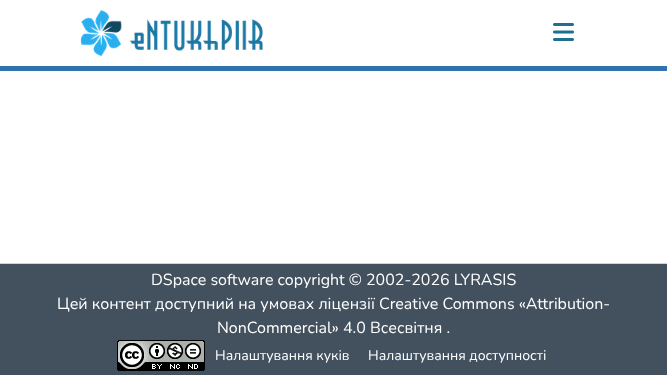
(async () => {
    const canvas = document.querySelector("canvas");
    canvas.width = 667;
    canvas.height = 375;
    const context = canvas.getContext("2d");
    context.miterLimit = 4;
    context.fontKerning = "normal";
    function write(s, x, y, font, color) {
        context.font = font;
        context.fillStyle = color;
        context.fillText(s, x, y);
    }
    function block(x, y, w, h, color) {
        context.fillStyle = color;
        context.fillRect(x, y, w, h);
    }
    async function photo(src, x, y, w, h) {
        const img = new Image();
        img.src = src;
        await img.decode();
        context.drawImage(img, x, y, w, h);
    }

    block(0, 0, 667, 375, "rgb(255, 255, 255)");
    block(0, 66, 667, 5, "rgb(48, 114, 171)");
    await photo("media/1.png", 80, 10, 183, 47);
    await photo("media/2.png", 553, 23, 21, 18);
    block(0, 264, 667, 111, "rgb(67, 81, 95)");
    block(0, 263, 667, 1, "rgb(206, 212, 218)");
    write("DSpace software copyright © 2002-2026 LYRASIS", 151, 285, "16px Nunito", "rgb(255, 255, 255)");
    write("Цей контент доступний на умовах ліцензії Creative Commons «Attribution-", 57, 309, "16px Nunito", "rgb(255, 255, 255)");
    write("NonCommercial» 4.0 Всесвітня .", 217, 333, "16px Nunito", "rgb(255, 255, 255)");
    await photo("media/3.png", 117, 340, 88, 31);
    write("Налаштування куків", 215, 360, "14px Nunito", "rgb(255, 255, 255)");
    block(358, 344, 1, 23, "rgb(73, 80, 87)");
    write("Налаштування доступності", 368, 360, "14px Nunito", "rgb(255, 255, 255)");
})();
